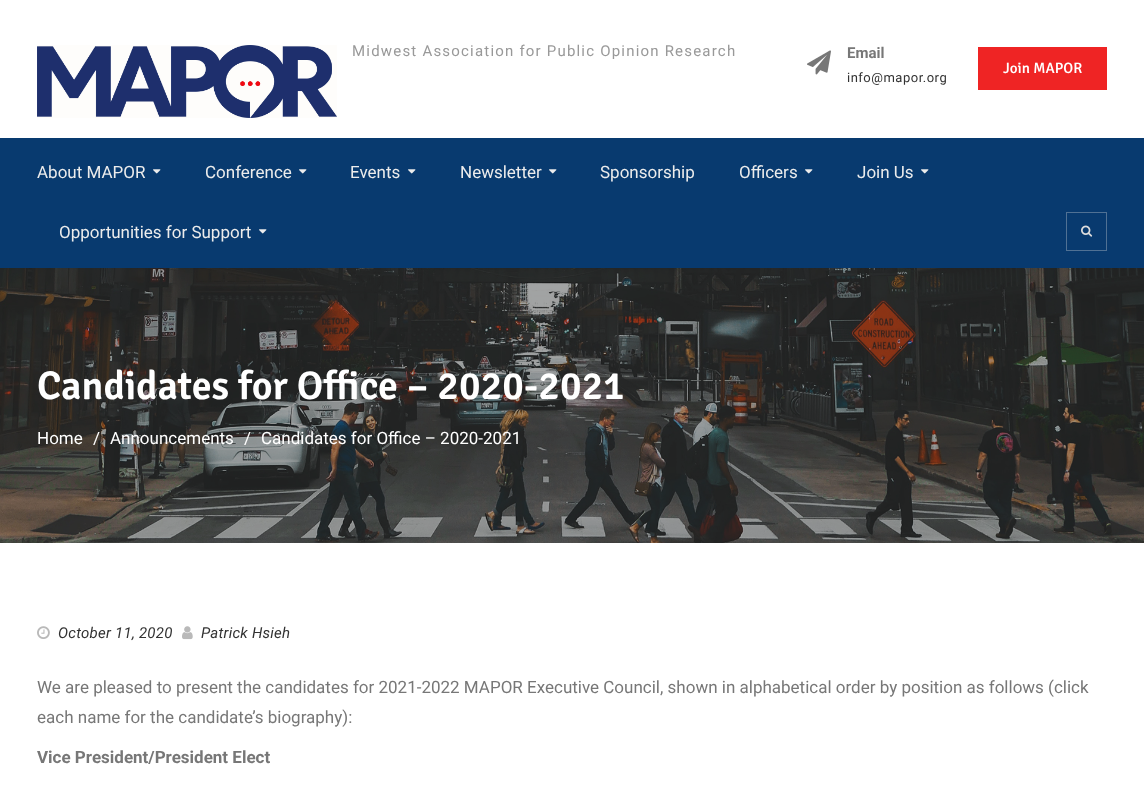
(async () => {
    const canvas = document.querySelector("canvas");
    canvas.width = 1144;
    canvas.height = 795;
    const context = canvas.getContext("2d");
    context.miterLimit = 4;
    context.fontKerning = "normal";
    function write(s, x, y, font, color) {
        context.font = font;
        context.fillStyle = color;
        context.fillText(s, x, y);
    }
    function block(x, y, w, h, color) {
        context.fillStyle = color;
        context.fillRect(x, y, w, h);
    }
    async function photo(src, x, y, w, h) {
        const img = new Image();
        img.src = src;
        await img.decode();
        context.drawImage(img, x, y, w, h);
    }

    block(0, 0, 1144, 795, "rgb(255, 255, 255)");
    await photo("media/1.png", 37, 45, 300, 73);
    context.letterSpacing = "1.2px";
    write("Midwest Association for Public Opinion Research", 352, 56, "15px Roboto", "rgb(153, 153, 153)");
    await photo("media/2.png", 807, 50, 24, 25);
    context.letterSpacing = "0px";
    write("Email", 847, 58, "bold 15px Roboto", "rgb(119, 119, 119)");
    context.letterSpacing = "0.5px";
    write("info@mapor.org", 847, 82, "13px Roboto", "rgb(50, 50, 50)");
    block(978, 47, 129, 43, "rgb(239, 36, 36)");
    context.letterSpacing = "0px";
    write("Join MAPOR", 1003, 73, "500 15px Signika", "rgb(255, 255, 255)");
    block(0, 138, 1144, 130, "rgb(8, 58, 111)");
    write("About MAPOR", 37, 178, "17px Roboto", "rgb(236, 236, 236)");
    await photo("media/3.png", 153, 169, 8, 5);
    write("Conference", 205, 178, "17px Roboto", "rgb(236, 236, 236)");
    await photo("media/3.png", 299, 169, 8, 5);
    write("Events", 350, 178, "17px Roboto", "rgb(236, 236, 236)");
    await photo("media/3.png", 408, 169, 8, 5);
    write("Newsletter", 460, 178, "17px Roboto", "rgb(236, 236, 236)");
    await photo("media/3.png", 549, 169, 8, 5);
    write("Sponsorship", 600, 178, "17px Roboto", "rgb(236, 236, 236)");
    write("Officers", 739, 178, "17px Roboto", "rgb(236, 236, 236)");
    await photo("media/3.png", 805, 169, 8, 5);
    write("Join Us", 857, 178, "17px Roboto", "rgb(236, 236, 236)");
    await photo("media/3.png", 921, 169, 8, 5);
    write("Opportunities for Support", 59, 238, "17px Roboto", "rgb(236, 236, 236)");
    await photo("media/3.png", 259, 229, 8, 5);
    context.strokeStyle = "rgb(80, 113, 148)";
    context.strokeRect(1066.5, 212.5, 40, 38);
    await photo("media/4.png", 1081, 225, 12, 12);
    await photo("media/5.png", 0, 268, 1144, 275);
    write("Candidates for Office – 2020-2021", 37, 399, "600 40px Signika", "rgb(255, 255, 255)");
    write("Home", 37, 444, "17px Roboto", "rgb(255, 255, 255)");
    write("/", 93, 444, "17px Roboto", "rgb(255, 255, 255)");
    write("Announcements", 110, 444, "17px Roboto", "rgb(255, 255, 255)");
    write("/", 244, 444, "17px Roboto", "rgb(255, 255, 255)");
    write("Candidates for Office – 2020-2021", 261, 444, "17px Roboto", "rgb(255, 255, 255)");
    await photo("media/6.png", 37, 626, 13, 13);
    context.letterSpacing = "0.25px";
    write("October 11, 2020", 58, 638, "italic 15px Roboto", "rgb(50, 50, 50)");
    await photo("media/7.png", 182, 626, 11, 14);
    write("Patrick Hsieh", 201, 638, "italic 15px Roboto", "rgb(50, 50, 50)");
    context.letterSpacing = "0px";
    write("We are pleased to present the candidates for 2021-2022 MAPOR Executive Council, shown in alphabetical order by position as follows (click", 37, 693, "17px Roboto", "rgb(119, 119, 119)");
    write("each name for the candidate’s biography):", 37, 723, "17px Roboto", "rgb(119, 119, 119)");
    write("Vice President/President Elect", 37, 763, "bold 17px Roboto", "rgb(119, 119, 119)");
})();
